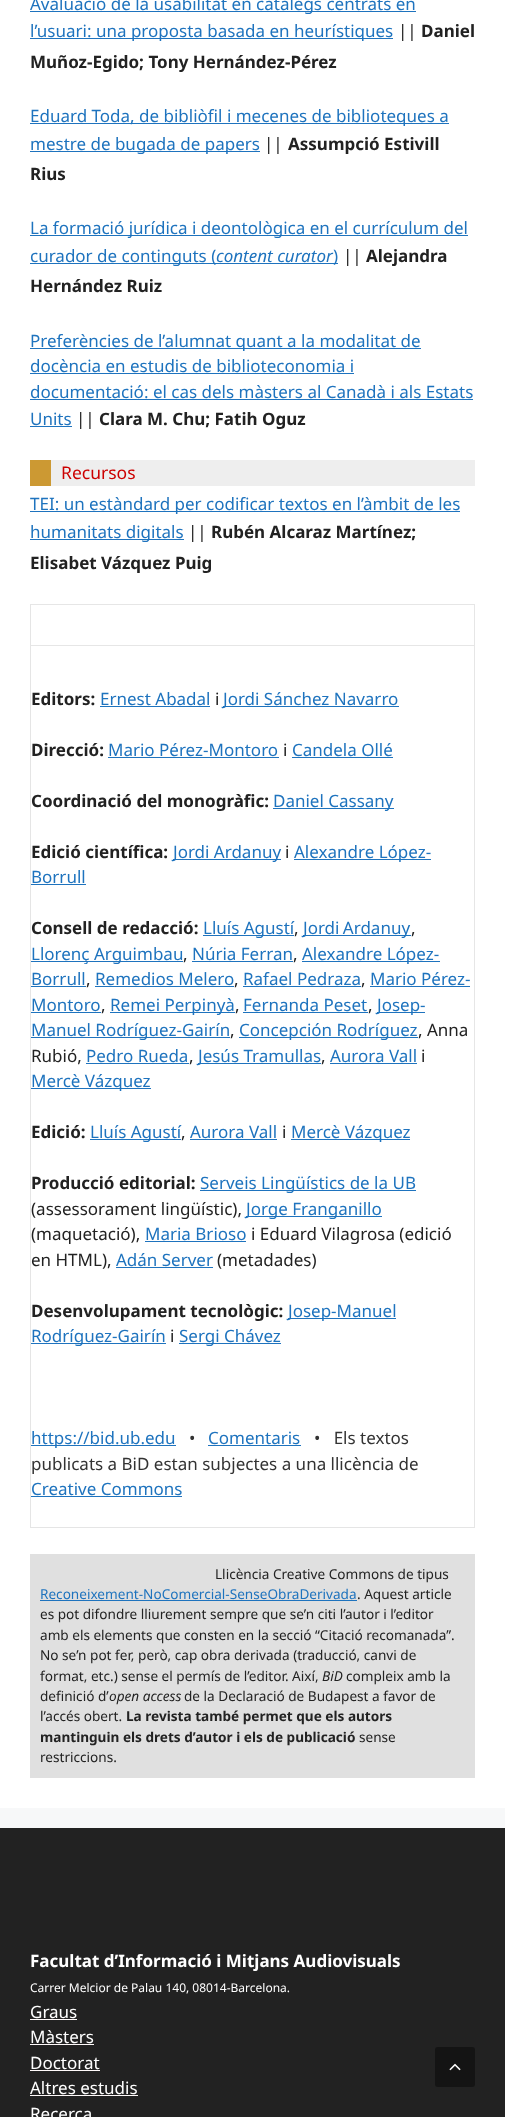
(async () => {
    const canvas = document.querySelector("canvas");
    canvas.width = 505;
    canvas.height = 2117;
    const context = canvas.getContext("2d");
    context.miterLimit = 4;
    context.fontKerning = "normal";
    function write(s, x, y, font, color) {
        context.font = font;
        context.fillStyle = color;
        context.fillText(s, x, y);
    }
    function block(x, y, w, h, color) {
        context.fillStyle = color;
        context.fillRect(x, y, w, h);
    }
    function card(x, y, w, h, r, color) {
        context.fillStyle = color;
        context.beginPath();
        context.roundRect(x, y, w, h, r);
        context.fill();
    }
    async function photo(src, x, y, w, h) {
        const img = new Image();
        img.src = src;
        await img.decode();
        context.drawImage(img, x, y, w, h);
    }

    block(0, 0, 505, 2117, "rgb(247, 248, 249)");
    block(0, 0, 505, 1808, "rgb(255, 255, 255)");
    block(30, 11, 386, 1, "rgb(30, 115, 190)");
    write("Avaluació de la usabilitat en catàlegs centrats en", 30, 10, "17px Noto Sans", "rgb(30, 115, 190)");
    block(30, 38, 363, 1, "rgb(30, 115, 190)");
    write("l’usuari: una proposta basada en heurístiques", 30, 37, "17px Noto Sans", "rgb(30, 115, 190)");
    write("||", 398, 37, "17px Noto Sans", "rgb(34, 34, 34)");
    write("Daniel", 421, 37, "bold 17px Noto Sans", "rgb(34, 34, 34)");
    write("Muñoz-Egido; Tony Hernández-Pérez", 30, 68, "bold 17px Noto Sans", "rgb(34, 34, 34)");
    block(30, 123, 419, 1, "rgb(30, 115, 190)");
    write("Eduard Toda, de bibliòfil i mecenes de biblioteques a", 30, 122, "17px Noto Sans", "rgb(30, 115, 190)");
    block(30, 151, 230, 1, "rgb(30, 115, 190)");
    write("mestre de bugada de papers", 30, 150, "17px Noto Sans", "rgb(30, 115, 190)");
    write("||", 264, 150, "17px Noto Sans", "rgb(34, 34, 34)");
    write("Assumpció Estivill", 288, 150, "bold 17px Noto Sans", "rgb(34, 34, 34)");
    write("Rius", 30, 180, "bold 17px Noto Sans", "rgb(34, 34, 34)");
    block(30, 235, 438, 1, "rgb(30, 115, 190)");
    write("La formació jurídica i deontològica en el currículum del", 30, 234, "17px Noto Sans", "rgb(30, 115, 190)");
    block(30, 263, 308, 1, "rgb(30, 115, 190)");
    write("curador de continguts (", 30, 262, "17px Noto Sans", "rgb(30, 115, 190)");
    write("content curator", 216, 262, "italic 17px Noto Sans", "rgb(30, 115, 190)");
    write(")", 333, 262, "17px Noto Sans", "rgb(30, 115, 190)");
    write("||", 343, 262, "17px Noto Sans", "rgb(34, 34, 34)");
    write("Alejandra", 366, 262, "bold 17px Noto Sans", "rgb(34, 34, 34)");
    write("Hernández Ruiz", 30, 292, "bold 17px Noto Sans", "rgb(34, 34, 34)");
    block(30, 348, 391, 1, "rgb(30, 115, 190)");
    write("Preferències de l’alumnat quant a la modalitat de", 30, 347, "17px Noto Sans", "rgb(30, 115, 190)");
    write("docència en estudis de biblioteconomia i", 30, 372, "17px Noto Sans", "rgb(30, 115, 190)");
    block(30, 373, 324, 1, "rgb(30, 115, 190)");
    write("documentació: el cas dels màsters al Canadà i als Estats", 30, 398, "17px Noto Sans", "rgb(30, 115, 190)");
    block(30, 399, 443, 1, "rgb(30, 115, 190)");
    write("Units", 30, 425, "17px Noto Sans", "rgb(30, 115, 190)");
    block(30, 426, 42, 1, "rgb(30, 115, 190)");
    write("||", 76, 425, "17px Noto Sans", "rgb(34, 34, 34)");
    write("Clara M. Chu; Fatih Oguz", 99, 425, "bold 17px Noto Sans", "rgb(34, 34, 34)");
    block(51, 460, 424, 26, "rgb(238, 238, 238)");
    block(30, 460, 21, 26, "rgb(204, 153, 51)");
    write("Recursos", 61, 479, "17.5px Noto Sans", "rgb(204, 0, 0)");
    block(30, 511, 430, 1, "rgb(30, 115, 190)");
    write("TEI: un estàndard per codificar textos en l’àmbit de les", 30, 510, "17px Noto Sans", "rgb(30, 115, 190)");
    block(30, 539, 154, 1, "rgb(30, 115, 190)");
    write("humanitats digitals", 30, 538, "17px Noto Sans", "rgb(30, 115, 190)");
    write("||", 188, 538, "17px Noto Sans", "rgb(34, 34, 34)");
    write("Rubén Alcaraz Martínez;", 211, 538, "bold 17px Noto Sans", "rgb(34, 34, 34)");
    write("Elisabet Vázquez Puig", 30, 569, "bold 17px Noto Sans", "rgb(34, 34, 34)");
    context.fillStyle = "rgb(230, 230, 230)";
    context.beginPath();
    context.moveTo(30, 604);
    context.lineTo(475, 604);
    context.lineTo(475, 605);
    context.lineTo(31, 605);
    context.closePath();
    context.fill();
    context.fillStyle = "rgba(0, 0, 0, 0.1)";
    context.beginPath();
    context.moveTo(30, 1528);
    context.lineTo(30, 604);
    context.lineTo(31, 605);
    context.lineTo(31, 1528);
    context.closePath();
    context.fill();
    context.fillStyle = "rgb(230, 230, 230)";
    context.beginPath();
    context.moveTo(475, 605);
    context.lineTo(475, 1528);
    context.lineTo(474, 1527);
    context.lineTo(474, 605);
    context.closePath();
    context.fill();
    context.fillStyle = "rgba(0, 0, 0, 0.1)";
    context.beginPath();
    context.moveTo(475, 1528);
    context.lineTo(31, 1528);
    context.lineTo(31, 1527);
    context.lineTo(474, 1527);
    context.closePath();
    context.fill();
    block(31, 645, 443, 1, "rgb(230, 230, 230)");
    write("Editors:", 31, 705, "bold 17px Noto Sans", "rgb(34, 34, 34)");
    write("Ernest Abadal", 100, 705, "17px Noto Sans", "rgb(30, 115, 190)");
    block(100, 706, 110, 1, "rgb(30, 115, 190)");
    write("i", 215, 705, "17px Noto Sans", "rgb(34, 34, 34)");
    block(223, 706, 176, 1, "rgb(30, 115, 190)");
    write("Jordi Sánchez Navarro", 223, 705, "17px Noto Sans", "rgb(30, 115, 190)");
    write("Direcció:", 31, 756, "bold 17px Noto Sans", "rgb(34, 34, 34)");
    write("Mario Pérez-Montoro", 108, 756, "17px Noto Sans", "rgb(30, 115, 190)");
    block(108, 757, 171, 1, "rgb(30, 115, 190)");
    write("i", 283, 756, "17px Noto Sans", "rgb(34, 34, 34)");
    write("Candela Ollé", 292, 756, "17px Noto Sans", "rgb(30, 115, 190)");
    block(292, 757, 101, 1, "rgb(30, 115, 190)");
    write("Coordinació del monogràfic:", 31, 807, "bold 17px Noto Sans", "rgb(34, 34, 34)");
    block(273, 808, 121, 1, "rgb(30, 115, 190)");
    write("Daniel Cassany", 273, 807, "17px Noto Sans", "rgb(30, 115, 190)");
    write("Edició científica:", 31, 858, "bold 17px Noto Sans", "rgb(34, 34, 34)");
    block(173, 859, 108, 1, "rgb(30, 115, 190)");
    write("Jordi Ardanuy", 173, 858, "17px Noto Sans", "rgb(30, 115, 190)");
    write("i", 285, 858, "17px Noto Sans", "rgb(34, 34, 34)");
    block(294, 859, 137, 1, "rgb(30, 115, 190)");
    write("Alexandre López-", 294, 858, "17px Noto Sans", "rgb(30, 115, 190)");
    write("Borrull", 31, 883, "17px Noto Sans", "rgb(30, 115, 190)");
    block(31, 884, 55, 1, "rgb(30, 115, 190)");
    write("Consell de redacció:", 31, 934, "bold 17px Noto Sans", "rgb(34, 34, 34)");
    block(203, 935, 91, 1, "rgb(30, 115, 190)");
    write("Lluís Agustí", 203, 934, "17px Noto Sans", "rgb(30, 115, 190)");
    write(",", 294, 934, "17px Noto Sans", "rgb(34, 34, 34)");
    block(303, 935, 108, 1, "rgb(30, 115, 190)");
    context.wordSpacing = "-1px";
    write("Jordi Ardanuy", 303, 934, "17px Noto Sans", "rgb(30, 115, 190)");
    context.wordSpacing = "0px";
    write(",", 411, 934, "17px Noto Sans", "rgb(34, 34, 34)");
    block(31, 961, 152, 1, "rgb(30, 115, 190)");
    write("Llorenç Arguimbau", 31, 960, "17px Noto Sans", "rgb(30, 115, 190)");
    write(",", 183, 960, "17px Noto Sans", "rgb(34, 34, 34)");
    write("Núria Ferran", 192, 960, "17px Noto Sans", "rgb(30, 115, 190)");
    block(192, 961, 101, 1, "rgb(30, 115, 190)");
    write(",", 293, 960, "17px Noto Sans", "rgb(34, 34, 34)");
    block(302, 961, 138, 1, "rgb(30, 115, 190)");
    write("Alexandre López-", 302, 960, "17px Noto Sans", "rgb(30, 115, 190)");
    write("Borrull", 31, 985, "17px Noto Sans", "rgb(30, 115, 190)");
    block(31, 986, 55, 1, "rgb(30, 115, 190)");
    write(",", 86, 985, "17px Noto Sans", "rgb(34, 34, 34)");
    write("Remedios Melero", 95, 985, "17px Noto Sans", "rgb(30, 115, 190)");
    block(95, 986, 139, 1, "rgb(30, 115, 190)");
    write(",", 234, 985, "17px Noto Sans", "rgb(34, 34, 34)");
    write("Rafael Pedraza", 243, 985, "17px Noto Sans", "rgb(30, 115, 190)");
    block(243, 986, 118, 1, "rgb(30, 115, 190)");
    write(",", 361, 985, "17px Noto Sans", "rgb(34, 34, 34)");
    write("Mario Pérez-", 370, 985, "17px Noto Sans", "rgb(30, 115, 190)");
    block(370, 986, 100, 1, "rgb(30, 115, 190)");
    write("Montoro", 31, 1011, "17px Noto Sans", "rgb(30, 115, 190)");
    block(31, 1012, 70, 1, "rgb(30, 115, 190)");
    write(",", 101, 1011, "17px Noto Sans", "rgb(34, 34, 34)");
    block(110, 1012, 125, 1, "rgb(30, 115, 190)");
    write("Remei Perpinyà", 110, 1011, "17px Noto Sans", "rgb(30, 115, 190)");
    write(",", 235, 1011, "17px Noto Sans", "rgb(34, 34, 34)");
    write("Fernanda Peset", 243, 1011, "17px Noto Sans", "rgb(30, 115, 190)");
    block(243, 1012, 125, 1, "rgb(30, 115, 190)");
    write(",", 368, 1011, "17px Noto Sans", "rgb(34, 34, 34)");
    block(377, 1012, 48, 1, "rgb(30, 115, 190)");
    write("Josep-", 377, 1011, "17px Noto Sans", "rgb(30, 115, 190)");
    block(31, 1037, 199, 1, "rgb(30, 115, 190)");
    write("Manuel Rodríguez-Gairín", 31, 1036, "17px Noto Sans", "rgb(30, 115, 190)");
    write(",", 230, 1036, "17px Noto Sans", "rgb(34, 34, 34)");
    block(239, 1037, 179, 1, "rgb(30, 115, 190)");
    write("Concepción Rodríguez", 239, 1036, "17px Noto Sans", "rgb(30, 115, 190)");
    write(", Anna", 418, 1036, "17px Noto Sans", "rgb(34, 34, 34)");
    write("Rubió,", 31, 1062, "17px Noto Sans", "rgb(34, 34, 34)");
    write("Pedro Rueda", 86, 1062, "17px Noto Sans", "rgb(30, 115, 190)");
    block(86, 1063, 103, 1, "rgb(30, 115, 190)");
    block(198, 1063, 123, 1, "rgb(30, 115, 190)");
    write("Jesús Tramullas", 198, 1062, "17px Noto Sans", "rgb(30, 115, 190)");
    write("Aurora Vall", 330, 1062, "17px Noto Sans", "rgb(30, 115, 190)");
    block(330, 1063, 87, 1, "rgb(30, 115, 190)");
    write("i", 421, 1062, "17px Noto Sans", "rgb(34, 34, 34)");
    write(",", 189, 1062, "17px Noto Sans", "rgb(34, 34, 34)");
    write(",", 321, 1062, "17px Noto Sans", "rgb(34, 34, 34)");
    block(31, 1088, 120, 1, "rgb(30, 115, 190)");
    write("Mercè Vázquez", 31, 1087, "17px Noto Sans", "rgb(30, 115, 190)");
    write("Edició:", 31, 1138, "bold 17px Noto Sans", "rgb(34, 34, 34)");
    block(90, 1139, 91, 1, "rgb(30, 115, 190)");
    write("Lluís Agustí", 90, 1138, "17px Noto Sans", "rgb(30, 115, 190)");
    write(",", 181, 1138, "17px Noto Sans", "rgb(34, 34, 34)");
    write("Aurora Vall", 190, 1138, "17px Noto Sans", "rgb(30, 115, 190)");
    block(190, 1139, 87, 1, "rgb(30, 115, 190)");
    write("i", 282, 1138, "17px Noto Sans", "rgb(34, 34, 34)");
    block(291, 1139, 119, 1, "rgb(30, 115, 190)");
    write("Mercè Vázquez", 291, 1138, "17px Noto Sans", "rgb(30, 115, 190)");
    write("Producció editorial:", 31, 1189, "bold 17px Noto Sans", "rgb(34, 34, 34)");
    block(200, 1190, 216, 1, "rgb(30, 115, 190)");
    write("Serveis Lingüístics de la UB", 200, 1189, "17px Noto Sans", "rgb(30, 115, 190)");
    write("(assessorament lingüístic),", 31, 1215, "17px Noto Sans", "rgb(34, 34, 34)");
    block(246, 1216, 136, 1, "rgb(30, 115, 190)");
    write("Jorge Franganillo", 246, 1215, "17px Noto Sans", "rgb(30, 115, 190)");
    write("(maquetació),", 31, 1240, "17px Noto Sans", "rgb(34, 34, 34)");
    write("Maria Brioso", 145, 1240, "17px Noto Sans", "rgb(30, 115, 190)");
    block(145, 1241, 101, 1, "rgb(30, 115, 190)");
    write("i Eduard Vilagrosa (edició", 251, 1240, "17px Noto Sans", "rgb(34, 34, 34)");
    write("en HTML),", 31, 1266, "17px Noto Sans", "rgb(34, 34, 34)");
    write("Adán Server", 116, 1266, "17px Noto Sans", "rgb(30, 115, 190)");
    block(116, 1267, 97, 1, "rgb(30, 115, 190)");
    write("(metadades)", 217, 1266, "17px Noto Sans", "rgb(34, 34, 34)");
    write("Desenvolupament tecnològic:", 31, 1317, "bold 17px Noto Sans", "rgb(34, 34, 34)");
    block(288, 1318, 108, 1, "rgb(30, 115, 190)");
    write("Josep-Manuel", 288, 1317, "17px Noto Sans", "rgb(30, 115, 190)");
    block(31, 1343, 135, 1, "rgb(30, 115, 190)");
    write("Rodríguez-Gairín", 31, 1342, "17px Noto Sans", "rgb(30, 115, 190)");
    write("i", 170, 1342, "17px Noto Sans", "rgb(34, 34, 34)");
    block(179, 1343, 102, 1, "rgb(30, 115, 190)");
    write("Sergi Chávez", 179, 1342, "17px Noto Sans", "rgb(30, 115, 190)");
    block(31, 1445, 145, 1, "rgb(30, 115, 190)");
    write("https://bid.ub.edu", 31, 1444, "17px Noto Sans", "rgb(30, 115, 190)");
    write("•", 189, 1444, "17px Noto Sans", "rgb(51, 51, 51)");
    write("Comentaris", 208, 1444, "17px Noto Sans", "rgb(30, 115, 190)");
    block(208, 1445, 93, 1, "rgb(30, 115, 190)");
    write("•   Els textos", 314, 1444, "17px Noto Sans", "rgb(51, 51, 51)");
    write("publicats a BiD estan subjectes a una llicència de", 31, 1470, "17px Noto Sans", "rgb(51, 51, 51)");
    write("Creative Commons", 31, 1495, "17px Noto Sans", "rgb(30, 115, 190)");
    block(31, 1496, 151, 1, "rgb(30, 115, 190)");
    block(30, 1554, 445, 224, "rgb(224, 224, 224)");
    write("Llicència Creative Commons de tipus", 215, 1579, "13.6px Noto Sans", "rgb(34, 34, 34)");
    write("Reconeixement-NoComercial-SenseObraDerivada", 40, 1599, "13.6px Noto Sans", "rgb(30, 115, 190)");
    block(40, 1600, 317, 1, "rgb(30, 115, 190)");
    write(". Aquest article", 357, 1599, "13.6px Noto Sans", "rgb(34, 34, 34)");
    write("es pot difondre lliurement sempre que se’n citi l’autor i l’editor", 40, 1619, "13.6px Noto Sans", "rgb(34, 34, 34)");
    write("amb els elements que consten en la secció “Citació recomanada”.", 40, 1640, "13.6px Noto Sans", "rgb(34, 34, 34)");
    write("No se’n pot fer, però, cap obra derivada (traducció, canvi de", 40, 1660, "13.6px Noto Sans", "rgb(34, 34, 34)");
    write("format, etc.) sense el permís de l’editor. Així,", 40, 1681, "13.6px Noto Sans", "rgb(34, 34, 34)");
    write("BiD", 322, 1681, "italic 13.6px Noto Sans", "rgb(34, 34, 34)");
    write("compleix amb la", 346, 1681, "13.6px Noto Sans", "rgb(34, 34, 34)");
    write("definició d’", 40, 1701, "13.6px Noto Sans", "rgb(34, 34, 34)");
    write("open access", 109, 1701, "italic 13.6px Noto Sans", "rgb(34, 34, 34)");
    write("de la Declaració de Budapest a favor de", 184, 1701, "13.6px Noto Sans", "rgb(34, 34, 34)");
    write("l’accés obert.", 40, 1721, "13.6px Noto Sans", "rgb(34, 34, 34)");
    write("La revista també permet que els autors", 126, 1721, "bold 13.6px Noto Sans", "rgb(34, 34, 34)");
    write("mantinguin els drets d’autor i els de publicació", 40, 1742, "bold 13.6px Noto Sans", "rgb(34, 34, 34)");
    write("sense", 359, 1742, "13.6px Noto Sans", "rgb(34, 34, 34)");
    write("restriccions.", 40, 1762, "13.6px Noto Sans", "rgb(34, 34, 34)");
    block(0, 1828, 505, 289, "rgb(34, 34, 34)");
    write("Facultat d’Informació i Mitjans Audiovisuals", 30, 1967, "bold 17px Noto Sans", "rgb(255, 255, 255)");
    write("Carrer Melcior de Palau 140, 08014-Barcelona.", 30, 1992, "12px Noto Sans", "rgb(255, 255, 255)");
    write("Graus", 30, 2018, "17px Noto Sans", "rgb(255, 255, 255)");
    block(30, 2019, 47, 1, "rgb(255, 250, 250)");
    write("Màsters", 30, 2043, "17px Noto Sans", "rgb(255, 255, 255)");
    block(30, 2044, 64, 1, "rgb(255, 250, 250)");
    write("Doctorat", 30, 2069, "17px Noto Sans", "rgb(255, 255, 255)");
    block(30, 2070, 70, 1, "rgb(255, 250, 250)");
    write("Altres estudis", 30, 2094, "17px Noto Sans", "rgb(255, 255, 255)");
    block(30, 2095, 108, 1, "rgb(255, 250, 250)");
    write("Recerca", 30, 2120, "17px Noto Sans", "rgb(255, 255, 255)");
    card(435, 2047, 40, 40, 3, "rgb(20, 20, 20)");
    await photo("media/1.png", 449, 2063, 12, 8);
})();
